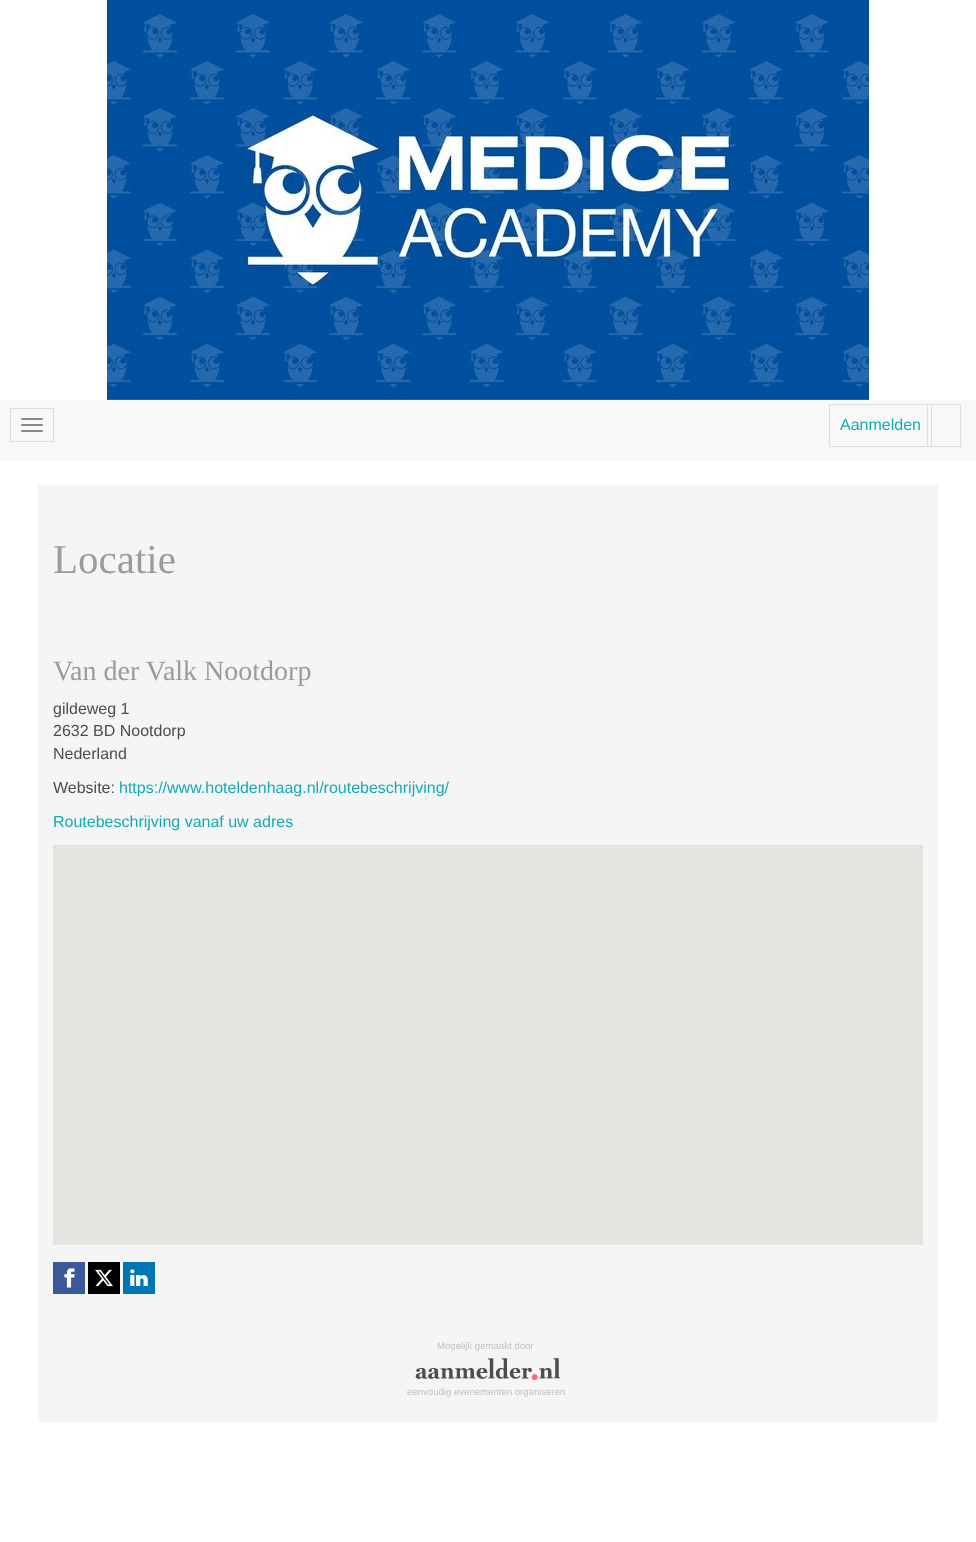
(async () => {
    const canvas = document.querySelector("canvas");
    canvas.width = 976;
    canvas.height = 1542;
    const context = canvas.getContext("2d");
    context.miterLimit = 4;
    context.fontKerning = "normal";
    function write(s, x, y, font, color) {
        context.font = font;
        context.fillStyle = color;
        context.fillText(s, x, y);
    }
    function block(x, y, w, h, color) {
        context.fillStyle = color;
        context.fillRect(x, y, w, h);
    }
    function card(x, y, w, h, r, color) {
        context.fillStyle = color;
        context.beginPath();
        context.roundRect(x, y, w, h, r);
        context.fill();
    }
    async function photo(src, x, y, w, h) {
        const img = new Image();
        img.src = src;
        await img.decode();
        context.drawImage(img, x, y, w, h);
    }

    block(0, 0, 976, 1542, "rgb(255, 255, 255)");
    await photo("media/1.png", 107, 0, 762, 400);
    block(0, 400, 976, 61, "rgb(248, 248, 248)");
    context.strokeStyle = "rgb(221, 221, 221)";
    context.strokeRect(10.5, 408.5, 43, 33);
    card(21, 418, 22, 2, 1, "rgb(136, 136, 136)");
    card(21, 424, 22, 2, 1, "rgb(136, 136, 136)");
    card(21, 430, 22, 2, 1, "rgb(136, 136, 136)");
    context.strokeRect(927.5, 404.5, 33, 42);
    context.strokeRect(829.5, 404.5, 102, 42);
    write("Aanmelden", 840, 430, "16px Liberation Sans", "rgb(18, 172, 184)");
    block(38, 485, 900, 937, "rgb(245, 245, 245)");
    write("Locatie", 53, 573, "41px Liberation Serif", "rgb(151, 158, 150)");
    write("Van der Valk Nootdorp", 53, 680, "28px Liberation Serif", "rgb(151, 158, 150)");
    write("gildeweg 1", 53, 714, "16px Liberation Sans", "rgb(77, 77, 77)");
    write("2632 BD Nootdorp", 53, 736, "16px Liberation Sans", "rgb(77, 77, 77)");
    write("Nederland", 53, 759, "16px Liberation Sans", "rgb(77, 77, 77)");
    write("Website:", 53, 793, "16px Liberation Sans", "rgb(77, 77, 77)");
    write("https://www.hoteldenhaag.nl/routebeschrijving/", 119, 793, "16px Liberation Sans", "rgb(18, 172, 184)");
    write("Routebeschrijving vanaf uw adres", 53, 827, "16px Liberation Sans", "rgb(18, 172, 184)");
    block(53, 845, 870, 400, "rgb(229, 227, 223)");
    block(53, 1262, 32, 32, "rgb(59, 89, 152)");
    await photo("media/2.png", 64, 1268, 11, 20);
    block(88, 1262, 32, 32, "rgb(0, 0, 0)");
    await photo("media/3.png", 95, 1269, 18, 18);
    block(123, 1262, 32, 32, "rgb(0, 119, 181)");
    await photo("media/4.png", 130, 1269, 18, 17);
    write("Mogelijk gemaakt door", 437, 1349, "9.6px Liberation Sans", "rgb(194, 194, 194)");
    await photo("media/5.png", 415, 1358, 146, 23);
    write("eenvoudig evenementen organiseren", 407, 1395, "9.6px Liberation Sans", "rgb(194, 194, 194)");
})();
